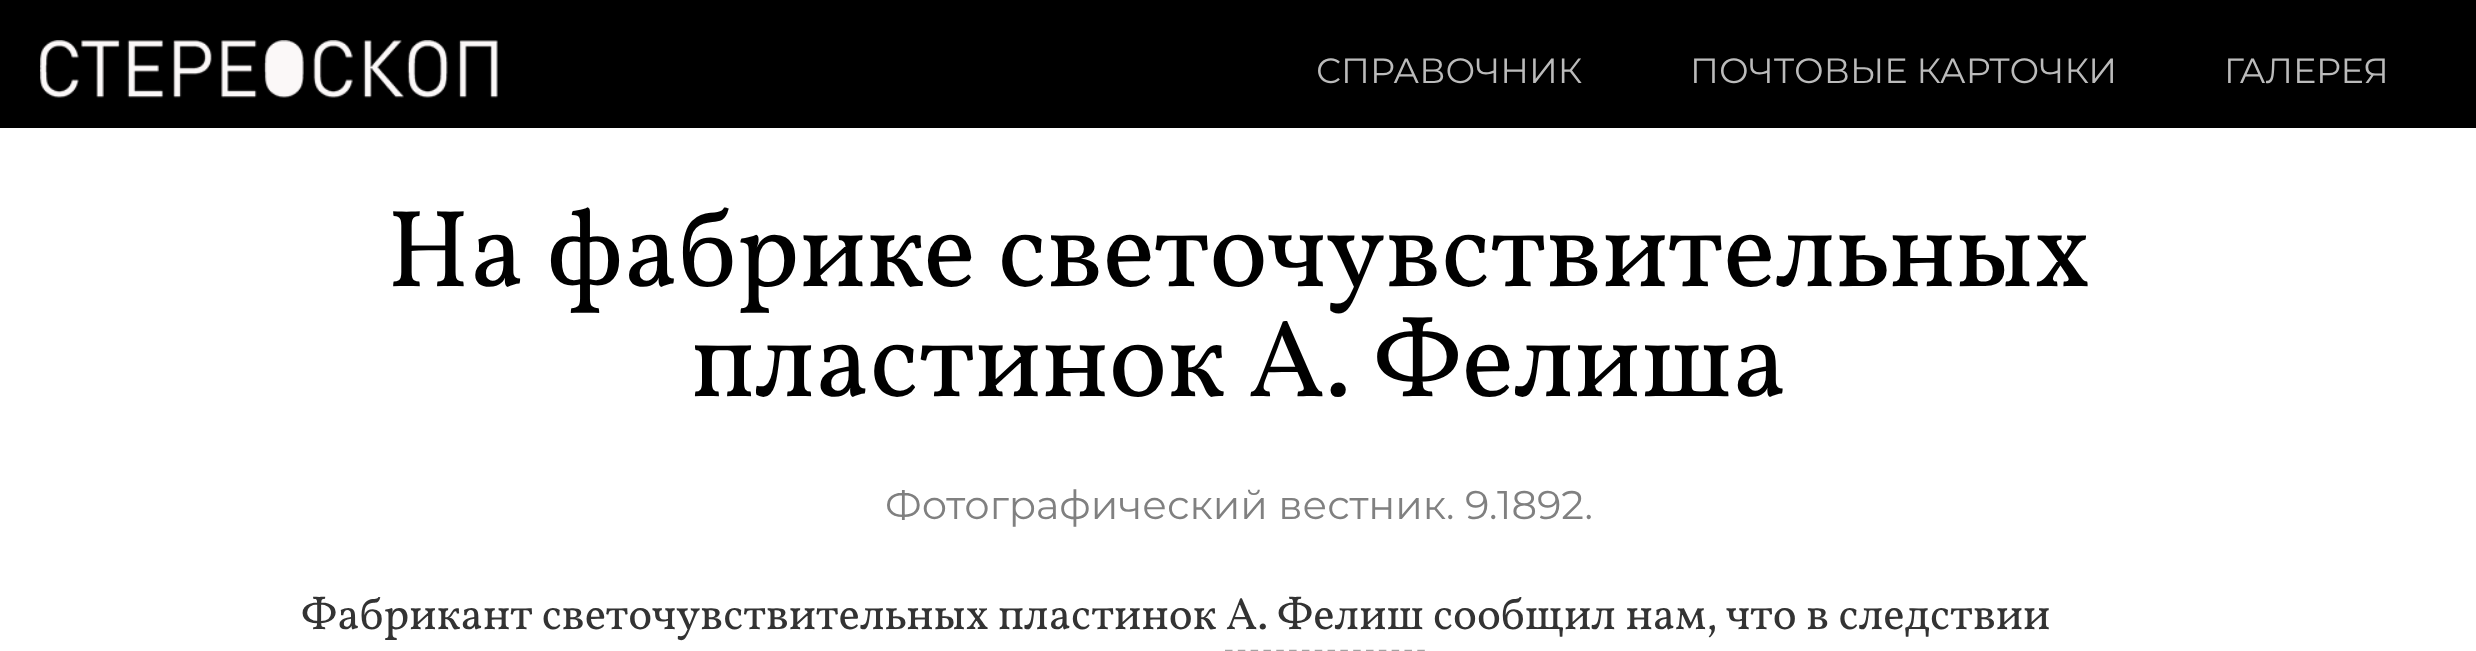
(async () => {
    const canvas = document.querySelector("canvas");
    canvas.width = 2476;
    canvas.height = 651;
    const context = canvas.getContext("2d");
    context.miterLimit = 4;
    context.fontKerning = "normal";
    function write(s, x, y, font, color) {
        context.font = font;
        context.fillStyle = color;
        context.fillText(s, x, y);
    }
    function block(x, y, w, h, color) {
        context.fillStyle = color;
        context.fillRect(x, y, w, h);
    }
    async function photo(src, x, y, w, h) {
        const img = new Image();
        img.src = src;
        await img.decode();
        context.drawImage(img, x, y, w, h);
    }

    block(0, 0, 2476, 651, "rgb(255, 255, 255)");
    block(0, 0, 2476, 128, "rgb(0, 0, 0)");
    await photo("media/1.png", 40, 40, 458, 58);
    write("СПРАВОЧНИК", 1316, 83, "35px Montserrat", "rgb(187, 187, 187)");
    write("ПОЧТОВЫЕ КАРТОЧКИ", 1690, 83, "35px Montserrat", "rgb(187, 187, 187)");
    write("ГАЛЕРЕЯ", 2224, 83, "35px Montserrat", "rgb(187, 187, 187)");
    write("На фабрике светочувствительных", 387, 286, "110px Vollkorn", "rgb(0, 0, 0)");
    write("пластинок А. Фелиша", 691, 396, "110px Vollkorn", "rgb(0, 0, 0)");
    write("Фотографический вестник. 9.1892.", 885, 519, "40px Montserrat", "rgb(128, 128, 128)");
    write("Фабрикант светочувствительных пластинок А. Фелиш", 301, 629, "45px Vollkorn", "rgb(51, 51, 51)");
    context.wordSpacing = "0.5px";
    write("сообщил нам, что в следствии", 1433, 629, "45px Vollkorn", "rgb(51, 51, 51)");
    context.beginPath();
    context.moveTo(1225, 651);
    context.lineTo(1425, 651);
    context.strokeStyle = "rgb(162, 162, 162)";
    context.lineWidth = 2.5;
    context.setLineDash([7.5, 5.32]);
    context.stroke();
})();
